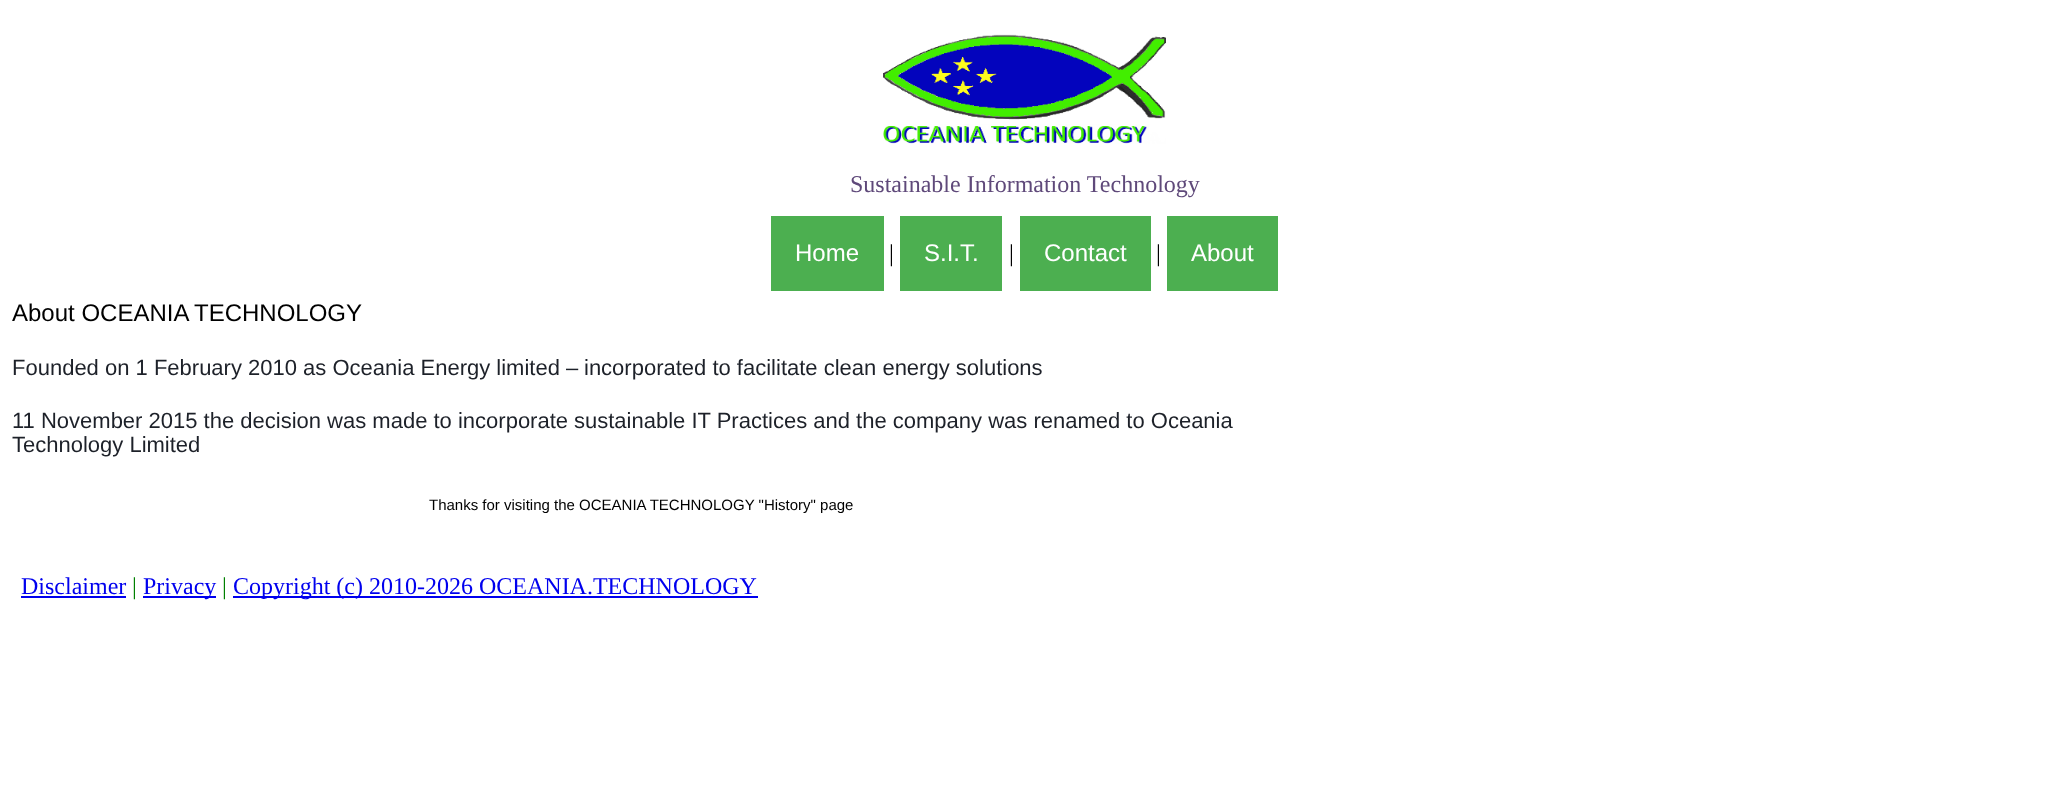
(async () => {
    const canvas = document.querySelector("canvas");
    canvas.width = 2048;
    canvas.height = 792;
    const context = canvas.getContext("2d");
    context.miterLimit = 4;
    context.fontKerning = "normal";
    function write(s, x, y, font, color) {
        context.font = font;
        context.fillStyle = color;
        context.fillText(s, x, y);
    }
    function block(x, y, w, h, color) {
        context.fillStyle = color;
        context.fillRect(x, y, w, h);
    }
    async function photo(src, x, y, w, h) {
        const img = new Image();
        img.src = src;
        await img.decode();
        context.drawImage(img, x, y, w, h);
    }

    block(0, 0, 2048, 792, "rgb(255, 255, 255)");
    await photo("media/1.png", 883, 34, 283, 110);
    write("Sustainable Information Technology", 850, 192, "24px Liberation Serif", "rgb(95, 73, 122)");
    block(771, 216, 113, 75, "rgb(76, 175, 80)");
    write("Home", 795, 261, "24px Liberation Sans", "rgb(255, 255, 255)");
    write("|", 889, 261, "24px Liberation Serif", "rgb(0, 0, 0)");
    block(900, 216, 102, 75, "rgb(76, 175, 80)");
    write("S.I.T.", 924, 261, "24px Liberation Sans", "rgb(255, 255, 255)");
    write("|", 1009, 261, "24px Liberation Serif", "rgb(0, 0, 0)");
    block(1020, 216, 131, 75, "rgb(76, 175, 80)");
    write("Contact", 1044, 261, "24px Liberation Sans", "rgb(255, 255, 255)");
    write("|", 1156, 261, "24px Liberation Serif", "rgb(0, 0, 0)");
    block(1167, 216, 111, 75, "rgb(76, 175, 80)");
    write("About", 1191, 261, "24px Liberation Sans", "rgb(255, 255, 255)");
    write("About OCEANIA", 12, 321, "24px Liberation Sans", "rgb(0, 0, 0)");
    write("TECHNOLOGY", 194, 321, "24px Liberation Sans", "rgb(0, 0, 0)");
    write("Founded on 1 February 2010 as Oceania Energy limited –", 12, 375, "22px Liberation Sans", "rgb(29, 33, 41)");
    write("incorporated to facilitate clean energy solutions", 584, 375, "22px Liberation Sans", "rgb(29, 33, 41)");
    write("11 November 2015 the decision was made to incorporate", 12, 428, "22px Liberation Sans", "rgb(29, 33, 41)");
    write("sustainable IT Practices and the company was renamed to Oceania", 574, 428, "22px Liberation Sans", "rgb(29, 33, 41)");
    write("Technology Limited", 12, 452, "22px Liberation Sans", "rgb(29, 33, 41)");
    write("Thanks for visiting the OCEANIA TECHNOLOGY \"History\" page", 429, 510, "15px Liberation Sans", "rgb(0, 0, 0)");
    write("Disclaimer", 21, 594, "24px Liberation Serif", "rgb(0, 0, 238)");
    block(21, 596, 105, 2, "rgb(0, 0, 238)");
    write("|", 132, 594, "24px Liberation Serif", "rgb(0, 128, 0)");
    block(143, 596, 73, 2, "rgb(0, 0, 238)");
    write("Privacy", 143, 594, "24px Liberation Serif", "rgb(0, 0, 238)");
    write("|", 222, 594, "24px Liberation Serif", "rgb(0, 128, 0)");
    block(233, 596, 525, 2, "rgb(0, 0, 238)");
    write("Copyright (c) 2010-2026 OCEANIA.TECHNOLOGY", 233, 594, "24px Liberation Serif", "rgb(0, 0, 238)");
})();
